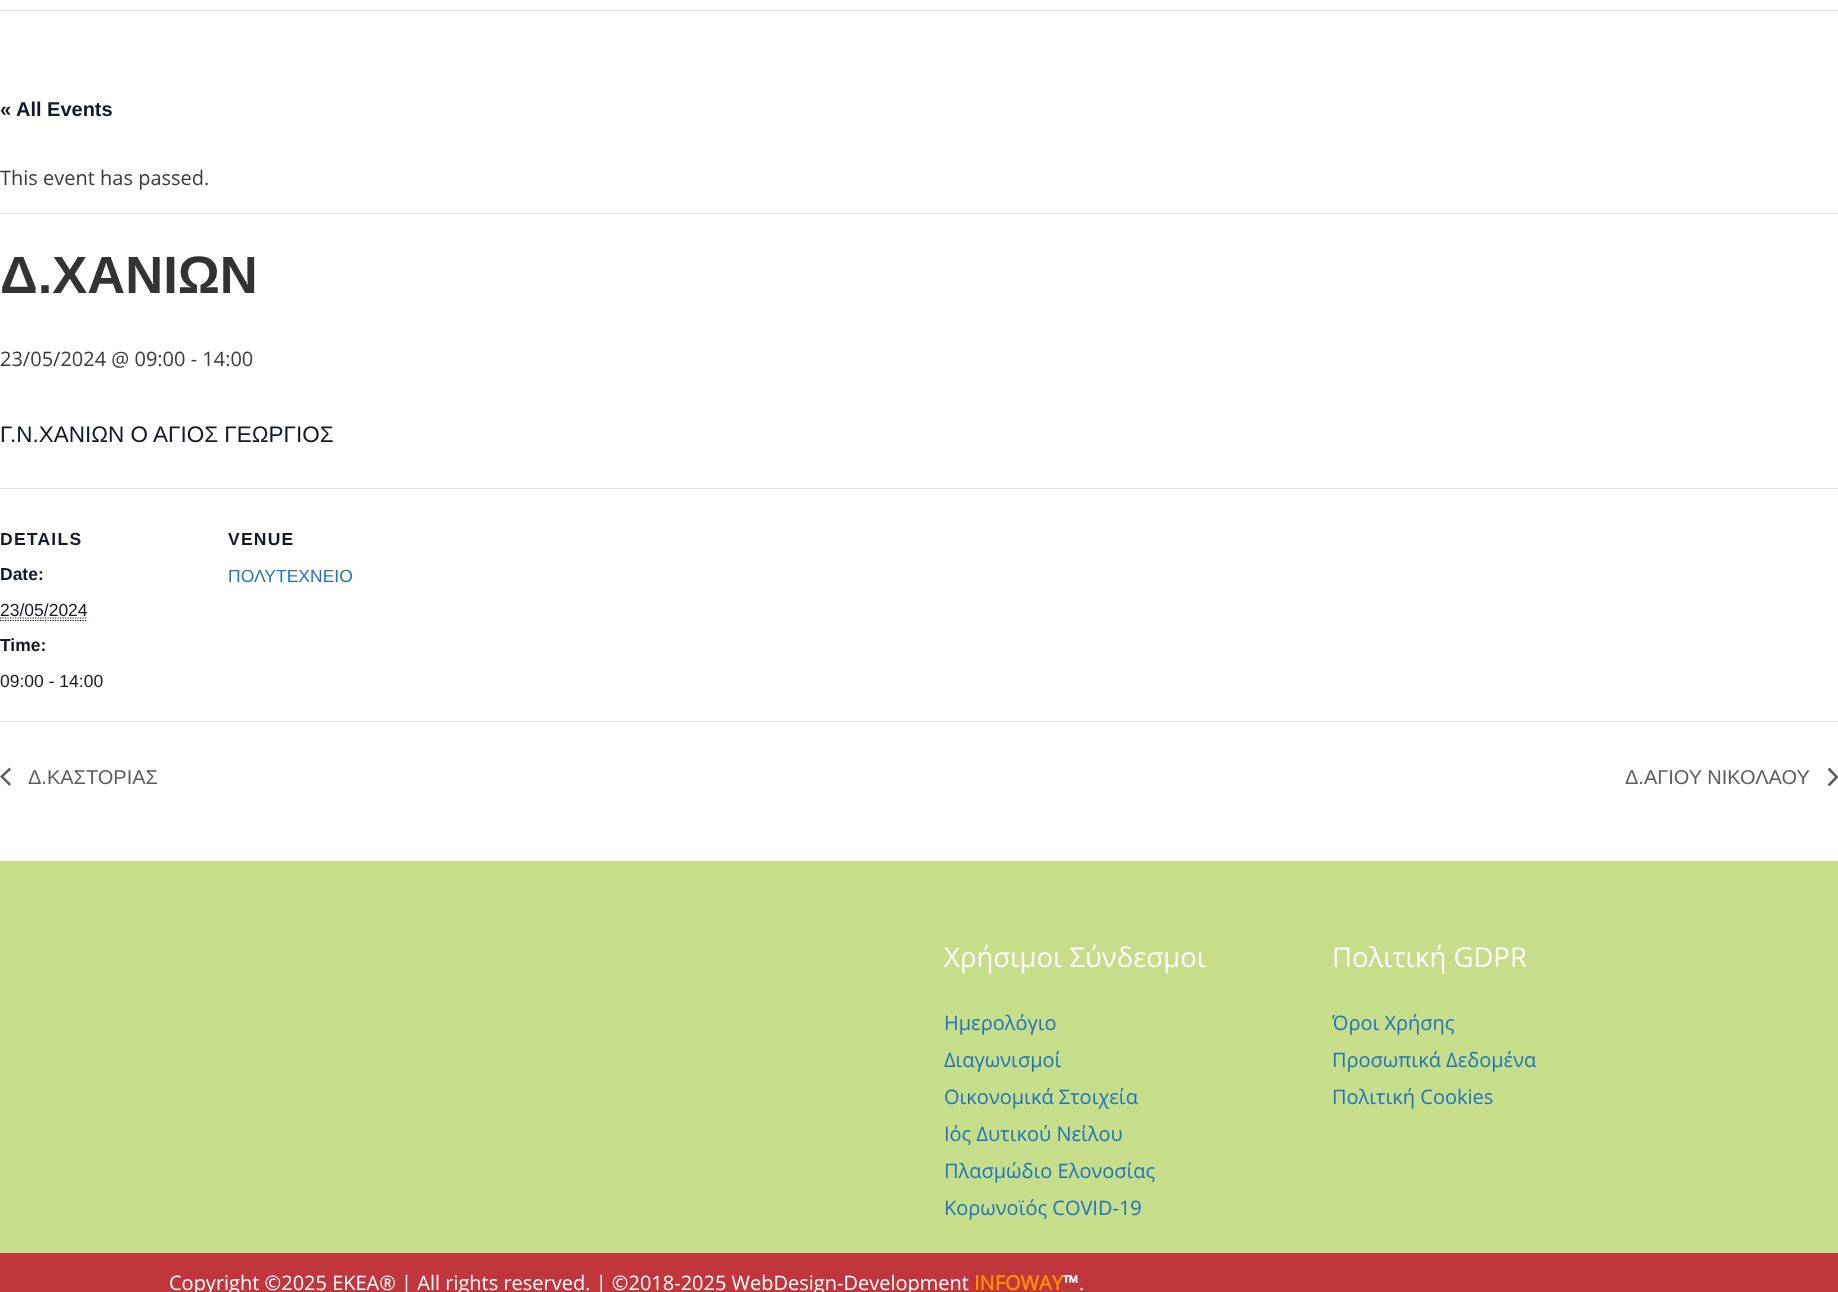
(async () => {
    const canvas = document.querySelector("canvas");
    canvas.width = 1838;
    canvas.height = 1292;
    const context = canvas.getContext("2d");
    context.miterLimit = 4;
    context.fontKerning = "normal";
    function write(s, x, y, font, color) {
        context.font = font;
        context.fillStyle = color;
        context.fillText(s, x, y);
    }
    function block(x, y, w, h, color) {
        context.fillStyle = color;
        context.fillRect(x, y, w, h);
    }

    block(0, 0, 1838, 1292, "rgb(255, 255, 255)");
    block(0, 10, 1838, 1, "rgb(221, 221, 221)");
    write("« All Events", 0, 116, "bold 20px Liberation Sans", "rgb(20, 24, 39)");
    block(0, 213, 1838, 1, "rgb(228, 228, 228)");
    write("This event has passed.", 0, 185, "20px Open Sans", "rgb(58, 58, 58)");
    write("Δ.ΧΑΝΙΩΝ", 0, 293, "bold 52.5px Liberation Sans", "rgb(51, 51, 51)");
    write("23/05/2024 @ 09:00 - 14:00", 0, 366, "20px Open Sans", "rgb(58, 58, 58)");
    write("Γ.Ν.ΧΑΝΙΩΝ Ο ΑΓΙΟΣ ΓΕΩΡΓΙΟΣ", 0, 442, "22.5px Liberation Sans", "rgb(20, 24, 39)");
    block(0, 488, 1838, 1, "rgb(228, 228, 228)");
    context.letterSpacing = "1.25px";
    write("DETAILS", 0, 545, "bold 17.5px Liberation Sans", "rgb(20, 24, 39)");
    context.letterSpacing = "0px";
    write("Date:", 0, 580, "bold 17.5px Liberation Sans", "rgb(20, 24, 39)");
    write("23/05/2024", 0, 616, "17.5px Liberation Sans", "rgb(20, 24, 39)");
    context.beginPath();
    context.moveTo(0, 620.5);
    context.lineTo(87.5, 620.5);
    context.strokeStyle = "rgb(20, 24, 39)";
    context.lineWidth = 1.2;
    context.setLineDash([1.25, 1.25]);
    context.stroke();
    context.beginPath();
    context.moveTo(0, 618);
    context.lineTo(87.5, 618);
    context.stroke();
    write("Time:", 0, 651, "bold 17.5px Liberation Sans", "rgb(20, 24, 39)");
    write("09:00 - 14:00", 0, 687, "17.5px Liberation Sans", "rgb(20, 24, 39)");
    context.letterSpacing = "1.25px";
    write("VENUE", 228, 545, "bold 17.5px Liberation Sans", "rgb(20, 24, 39)");
    context.letterSpacing = "0px";
    write("ΠΟΛΥΤΕΧΝΕΙΟ", 228, 582, "17.5px Liberation Sans", "rgb(30, 115, 190)");
    block(0, 721, 1838, 1, "rgb(228, 228, 228)");
    context.fillStyle = "rgb(93, 93, 93)";
    context.beginPath();
    context.moveTo(11, 784);
    context.lineTo(9.5, 786);
    context.lineTo(0, 776.5);
    context.lineTo(9.5, 767.5);
    context.lineTo(11, 769.5);
    context.lineTo(3.5, 776.5);
    context.closePath();
    context.fill();
    write("Δ.ΚΑΣΤΟΡΙΑΣ", 28, 784, "20px Liberation Sans", "rgb(93, 93, 93)");
    write("Δ.ΑΓΙΟΥ ΝΙΚΟΛΑΟΥ", 1625, 784, "20px Liberation Sans", "rgb(93, 93, 93)");
    context.save();
    context.beginPath();
    context.rect(1828, 768, 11, 18);
    context.clip();
    context.beginPath();
    context.moveTo(1827.5, 769.5);
    context.lineTo(1829.5, 767.5);
    context.lineTo(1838.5, 777);
    context.lineTo(1829.5, 786.5);
    context.lineTo(1827.5, 784.5);
    context.lineTo(1835, 777);
    context.closePath();
    context.fill();
    context.restore();
    block(0, 861, 1838, 392, "rgb(198, 222, 138)");
    write("Χρήσιμοι Σύνδεσμοι", 944, 967, "27.5px Open Sans", "rgb(255, 255, 255)");
    write("Ημερολόγιο", 944, 1030, "20px Open Sans", "rgb(30, 115, 190)");
    write("Διαγωνισμοί", 944, 1067, "20px Open Sans", "rgb(30, 115, 190)");
    write("Οικονομικά Στοιχεία", 944, 1104, "20px Open Sans", "rgb(30, 115, 190)");
    write("Ιός Δυτικού Νείλου", 944, 1141, "20px Open Sans", "rgb(30, 115, 190)");
    write("Πλασμώδιο Ελονοσίας", 944, 1178, "20px Open Sans", "rgb(30, 115, 190)");
    write("Κορωνοϊός COVID-19", 944, 1215, "20px Open Sans", "rgb(30, 115, 190)");
    write("Πολιτική GDPR", 1332, 967, "27.5px Open Sans", "rgb(255, 255, 255)");
    write("Όροι Χρήσης", 1332, 1030, "20px Open Sans", "rgb(30, 115, 190)");
    write("Προσωπικά Δεδομένα", 1332, 1067, "20px Open Sans", "rgb(30, 115, 190)");
    write("Πολιτική Cookies", 1332, 1104, "20px Open Sans", "rgb(30, 115, 190)");
    block(0, 1253, 1838, 39, "rgb(193, 53, 60)");
    write("Copyright ©2025 EKEA® | All rights reserved. | ©2018-2025 WebDesign-Development", 169, 1290, "20px Open Sans", "rgb(255, 255, 255)");
    write("INFOWAY", 974, 1290, "bold 20px Open Sans", "rgb(255, 145, 0)");
    write("™", 1063, 1290, "bold 20px Open Sans", "rgb(255, 255, 255)");
    write(".", 1079, 1290, "20px Open Sans", "rgb(255, 255, 255)");
})();
